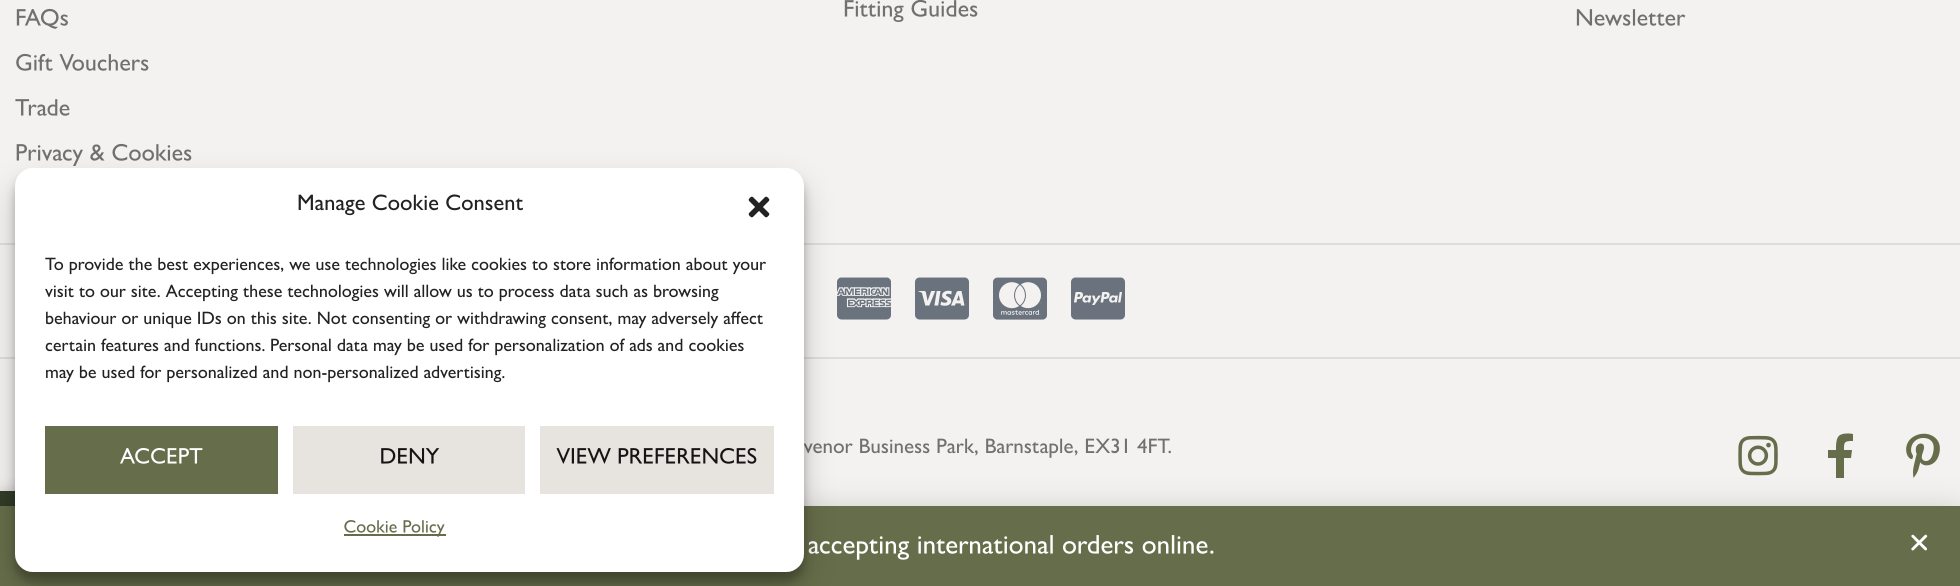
(async () => {
    const canvas = document.querySelector("canvas");
    canvas.width = 1960;
    canvas.height = 586;
    const context = canvas.getContext("2d");
    context.miterLimit = 4;
    context.fontKerning = "normal";
    function block(x, y, w, h, color) {
        context.fillStyle = color;
        context.fillRect(x, y, w, h);
    }
    function card(x, y, w, h, r, color) {
        context.fillStyle = color;
        context.beginPath();
        context.roundRect(x, y, w, h, r);
        context.fill();
    }
    async function photo(src, x, y, w, h) {
        const img = new Image();
        img.src = src;
        await img.decode();
        context.drawImage(img, x, y, w, h);
    }

    block(0, 0, 1960, 586, "rgb(244, 242, 240)");
    block(0, 243, 1960, 2, "rgb(221, 221, 221)");
    await photo("media/1.png", 16, 8, 52, 21);
    await photo("media/2.png", 16, 53, 133, 18);
    await photo("media/3.png", 15, 99, 55, 17);
    await photo("media/4.png", 16, 143, 176, 23);
    await photo("media/5.png", 844, 0, 134, 22);
    await photo("media/6.png", 1576, 9, 110, 17);
    block(0, 357, 1960, 2, "rgb(221, 221, 221)");
    await photo("media/7.png", 837, 277, 54, 43);
    await photo("media/8.png", 915, 277, 54, 43);
    await photo("media/9.png", 993, 277, 54, 43);
    await photo("media/10.png", 1071, 277, 54, 43);
    await photo("media/11.png", 804, 438, 367, 20);
    await photo("media/12.png", 1738, 435, 40, 41);
    context.fillStyle = "rgb(102, 109, 74)";
    context.beginPath();
    context.moveTo(1851, 458);
    context.lineTo(1844, 458);
    context.lineTo(1844, 478);
    context.lineTo(1836, 478);
    context.lineTo(1836, 458);
    context.lineTo(1828, 458);
    context.lineTo(1828, 450);
    context.lineTo(1836, 450);
    context.bezierCurveTo(1836, 436, 1838, 432, 1853, 434);
    context.lineTo(1853, 441);
    context.bezierCurveTo(1844, 441, 1844, 442, 1844, 450);
    context.lineTo(1852, 450);
    context.closePath();
    context.fill();
    await photo("media/13.png", 1906, 433, 34, 45);
    context.fillStyle = "rgba(0, 0, 0, 0.2)";
    context.filter = "blur(7.5px)";
    context.beginPath();
    context.roundRect(0, 491, 47, 51, 8);
    context.fill();
    context.filter = "none";
    block(0, 491, 15, 15, "rgb(51, 61, 41)");
    context.fillStyle = "rgba(0, 0, 0, 0.2)";
    context.filter = "blur(17px)";
    context.beginPath();
    context.rect(-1, 513, 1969, 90);
    context.fill();
    context.filter = "none";
    block(0, 506, 1960, 80, "rgb(102, 109, 74)");
    await photo("media/28.png", 808, 535, 406, 25);
    context.fillStyle = "rgba(0, 0, 0, 0.23)";
    context.filter = "blur(4.5px)";
    context.beginPath();
    context.roundRect(15, 177, 789, 404, 18);
    context.fill();
    context.filter = "none";
    context.fillStyle = "rgba(0, 0, 0, 0.19)";
    context.filter = "blur(15px)";
    context.beginPath();
    context.roundRect(15, 183, 789, 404, 18);
    context.fill();
    context.filter = "none";
    card(15, 168, 789, 404, 18, "rgb(255, 255, 255)");
    await photo("media/14.png", 298, 194, 225, 22);
    await photo("media/15.png", 748, 196, 22, 22);
    await photo("media/16.png", 45, 257, 721, 18);
    await photo("media/17.png", 45, 284, 674, 18);
    await photo("media/18.png", 46, 311, 717, 18);
    await photo("media/19.png", 45, 338, 220, 14);
    await photo("media/20.png", 271, 338, 381, 18);
    await photo("media/21.png", 658, 338, 25, 14);
    await photo("media/22.png", 689, 338, 55, 14);
    await photo("media/23.png", 46, 365, 459, 18);
    block(45, 426, 233, 68, "rgb(102, 109, 74)");
    await photo("media/24.png", 120, 448, 83, 16);
    block(293, 426, 232, 68, "rgb(231, 227, 222)");
    await photo("media/25.png", 381, 448, 59, 16);
    block(540, 426, 234, 68, "rgb(231, 227, 222)");
    await photo("media/26.png", 556, 448, 201, 16);
    block(344, 534, 102, 2, "rgb(102, 109, 74)");
    await photo("media/27.png", 344, 520, 101, 17);
    await photo("media/29.png", 1911, 534, 17, 17);
})();
